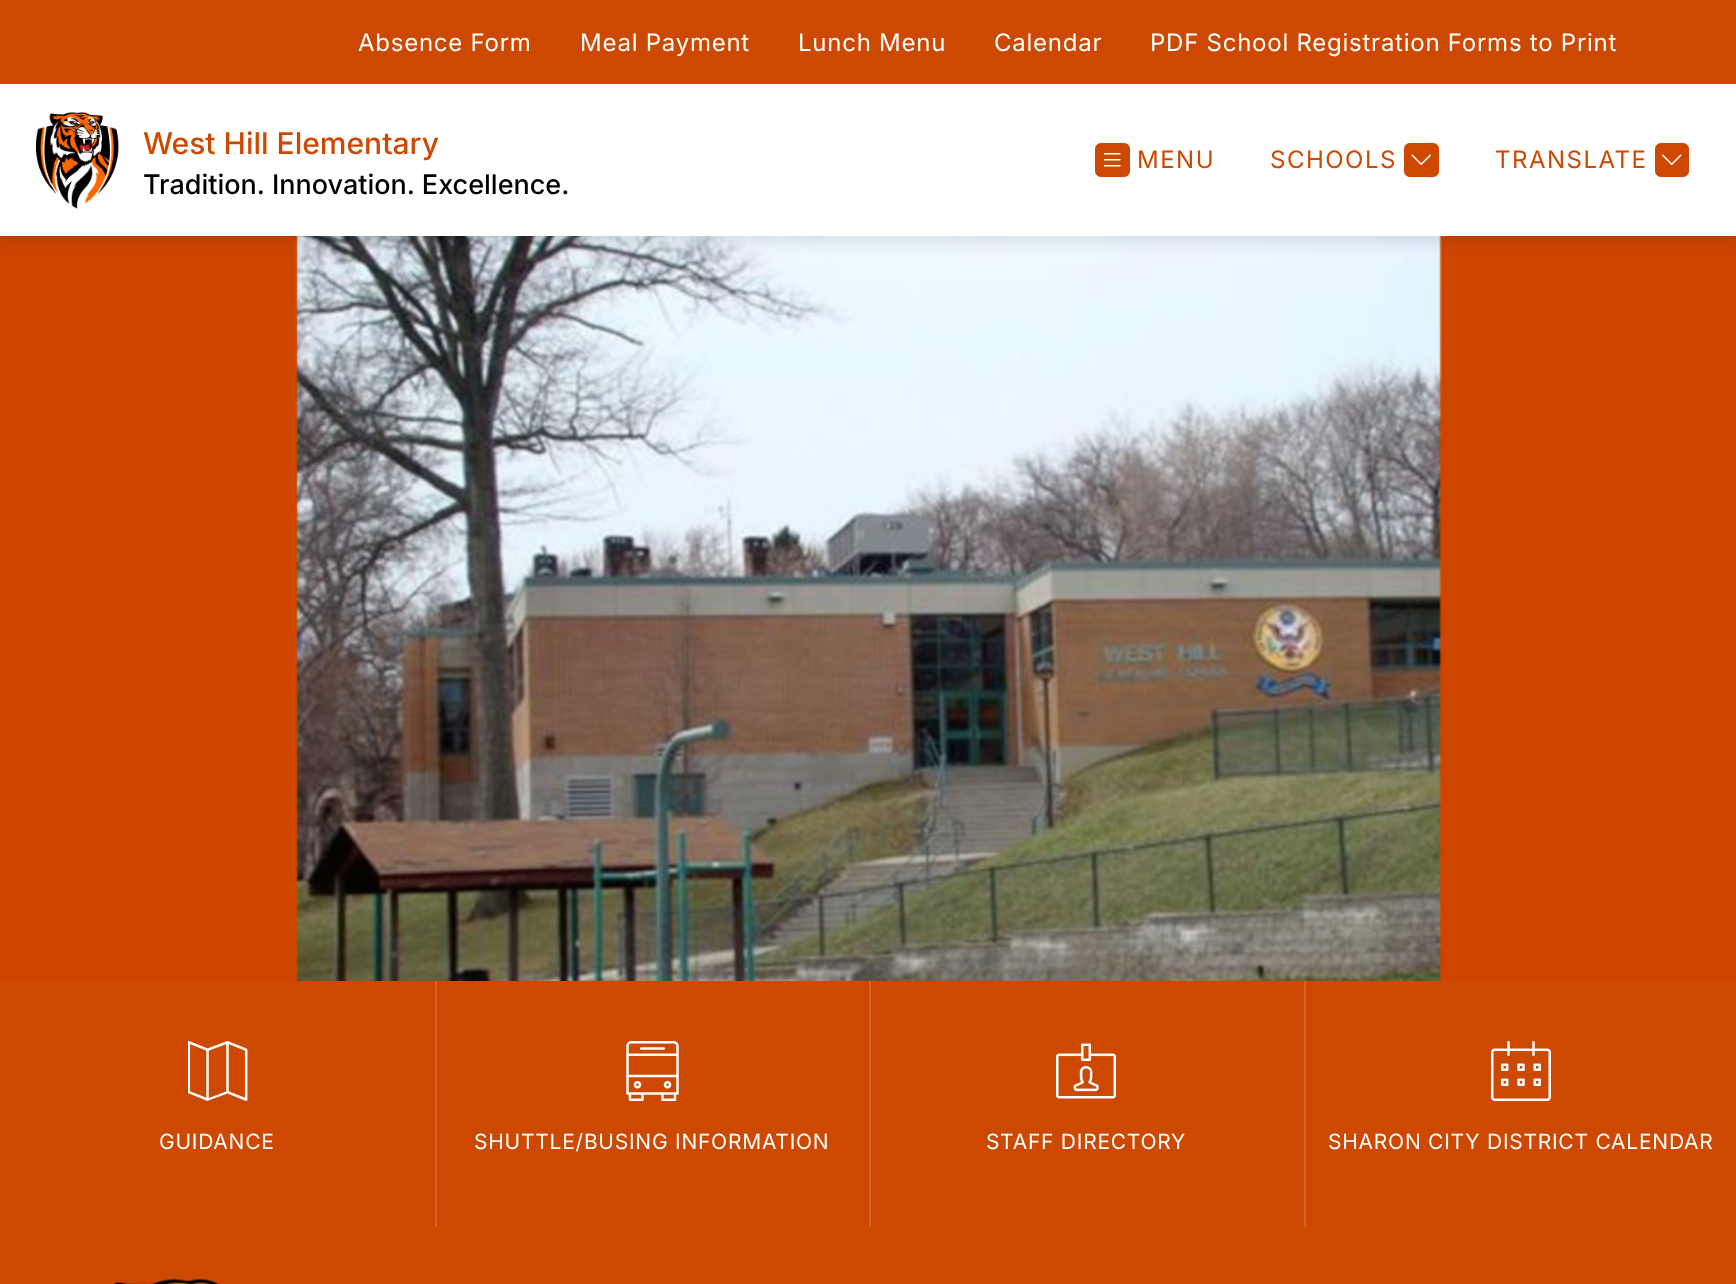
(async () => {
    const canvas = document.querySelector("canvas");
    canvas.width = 1736;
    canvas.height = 1284;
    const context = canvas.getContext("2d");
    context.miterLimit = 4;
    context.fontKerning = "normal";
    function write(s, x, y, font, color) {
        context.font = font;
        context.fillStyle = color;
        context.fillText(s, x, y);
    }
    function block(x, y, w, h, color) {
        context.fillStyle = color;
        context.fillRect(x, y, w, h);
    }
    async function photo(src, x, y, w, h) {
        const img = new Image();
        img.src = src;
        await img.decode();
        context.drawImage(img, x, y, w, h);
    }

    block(0, 0, 1736, 1284, "rgb(205, 72, 0)");
    await photo("media/5.png", 0, 236, 1736, 745);
    context.fillStyle = "rgba(0, 0, 0, 0.1)";
    context.filter = "blur(7.5px)";
    context.beginPath();
    context.rect(0, 6, 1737, 236);
    context.fill();
    context.filter = "none";
    block(0, 84, 1736, 152, "rgb(255, 255, 255)");
    block(0, 0, 1736, 84, "rgb(205, 72, 0)");
    context.letterSpacing = "0.75px";
    write("Absence Form", 358, 51, "24px Inter", "rgb(255, 255, 255)");
    write("Meal Payment", 580, 51, "24px Inter", "rgb(255, 255, 255)");
    write("Lunch Menu", 798, 51, "24px Inter", "rgb(255, 255, 255)");
    write("Calendar", 994, 51, "24px Inter", "rgb(255, 255, 255)");
    write("PDF School Registration Forms to Print", 1150, 51, "24px Inter", "rgb(255, 255, 255)");
    await photo("media/1.png", 36, 112, 83, 97);
    context.letterSpacing = "0px";
    write("West Hill Elementary", 143, 154, "500 30px Inter", "rgb(205, 72, 0)");
    write("Tradition. Innovation. Excellence.", 143, 194, "500 27px Inter", "rgb(0, 0, 0)");
    await photo("media/2.png", 1095, 143, 35, 34);
    context.letterSpacing = "1.5px";
    write("MENU", 1137, 168, "24px Inter", "rgb(205, 72, 0)");
    write("SCHOOLS", 1270, 168, "24px Inter", "rgb(205, 72, 0)");
    await photo("media/3.png", 1404, 143, 35, 34);
    write("TRANSLATE", 1495, 168, "24px Inter", "rgb(205, 72, 0)");
    await photo("media/4.png", 1655, 143, 34, 34);
    await photo("media/6.png", 188, 1041, 60, 60);
    context.letterSpacing = "0.75px";
    write("GUIDANCE", 159, 1149, "21px Inter", "rgb(255, 255, 255)");
    block(435, 981, 2, 246, "rgb(213, 99, 38)");
    await photo("media/7.png", 626, 1041, 53, 60);
    write("SHUTTLE/BUSING INFORMATION", 474, 1149, "21px Inter", "rgb(255, 255, 255)");
    block(869, 981, 2, 246, "rgb(213, 99, 38)");
    await photo("media/8.png", 1056, 1043, 60, 56);
    write("STAFF DIRECTORY", 986, 1149, "21px Inter", "rgb(255, 255, 255)");
    block(1304, 981, 2, 246, "rgb(213, 99, 38)");
    await photo("media/9.png", 1491, 1041, 60, 60);
    write("SHARON CITY DISTRICT CALENDAR", 1328, 1149, "21px Inter", "rgb(255, 255, 255)");
    await photo("media/10.png", 114, 1279, 106, 5);
})();
